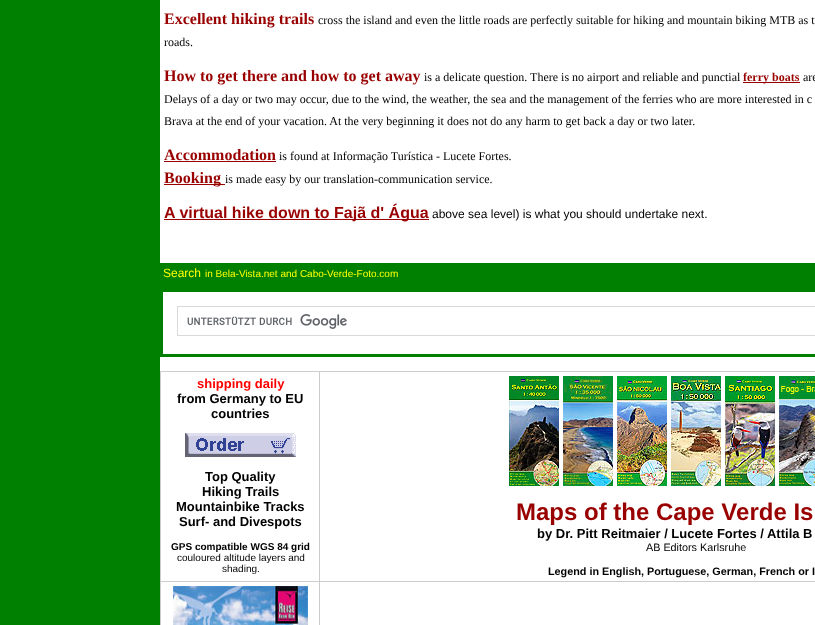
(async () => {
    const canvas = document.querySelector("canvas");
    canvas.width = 815;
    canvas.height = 625;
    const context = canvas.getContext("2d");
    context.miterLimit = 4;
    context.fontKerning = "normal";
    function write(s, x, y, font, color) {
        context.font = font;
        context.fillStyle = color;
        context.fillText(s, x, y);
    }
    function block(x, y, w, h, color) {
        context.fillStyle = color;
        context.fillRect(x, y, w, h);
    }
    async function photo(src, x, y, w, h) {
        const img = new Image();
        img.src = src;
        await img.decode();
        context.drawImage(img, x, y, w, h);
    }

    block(0, 0, 815, 625, "rgb(0, 128, 0)");
    block(160, 0, 655, 625, "rgb(255, 255, 255)");
    write("Excellent hiking trails", 164, 24, "bold 16px Liberation Serif", "rgb(153, 0, 0)");
    write("cross the island and even the little roads are perfectly suitable for hiking and mountain biking MTB as t", 318, 24, "12px Liberation Serif", "rgb(0, 0, 0)");
    write("roads.", 164, 46, "12px Liberation Serif", "rgb(0, 0, 0)");
    write("How to get there and how to get away", 164, 81, "bold 16px Liberation Serif", "rgb(153, 0, 0)");
    write("is a delicate question. There is no airport and reliable and punctial", 424, 81, "12px Liberation Serif", "rgb(0, 0, 0)");
    block(743, 82, 57, 1, "rgb(153, 0, 0)");
    write("ferry boats", 743, 81, "bold 12px Liberation Serif", "rgb(153, 0, 0)");
    write("are", 803, 81, "12px Liberation Serif", "rgb(0, 0, 0)");
    write("Delays of a day or two may occur, due to the wind, the weather, the sea and the management of the ferries who are more interested in c", 164, 103, "12px Liberation Serif", "rgb(0, 0, 0)");
    write("Brava at the end of your vacation. At the very beginning it does not do any harm to get back a day or two later.", 164, 125, "12px Liberation Serif", "rgb(0, 0, 0)");
    write("Accommodation", 164, 160, "bold 16px Liberation Serif", "rgb(153, 0, 0)");
    write("is found at Informação Turística - Lucete Fortes.", 279, 160, "12px Liberation Serif", "rgb(0, 0, 0)");
    block(164, 161, 112, 1, "rgb(153, 0, 0)");
    block(164, 184, 61, 1, "rgb(153, 0, 0)");
    write("Booking", 164, 183, "bold 16px Liberation Serif", "rgb(153, 0, 0)");
    write("is made easy by our translation-communication service.", 225, 183, "12px Liberation Serif", "rgb(0, 0, 0)");
    block(164, 219, 265, 1, "rgb(153, 0, 0)");
    write("A virtual hike down to Fajã d' Água", 164, 218, "bold 16px Liberation Sans", "rgb(153, 0, 0)");
    write("above sea level) is what you should undertake next.", 432, 218, "12px Liberation Sans", "rgb(0, 0, 0)");
    block(160, 263, 655, 94, "rgb(0, 128, 0)");
    write("Search", 163, 277, "12px Liberation Sans", "rgb(255, 255, 0)");
    write("in Bela-Vista.net and Cabo-Verde-Foto.com", 205, 277, "10px Liberation Sans", "rgb(255, 255, 0)");
    block(163, 292, 652, 62, "rgb(255, 255, 255)");
    context.strokeStyle = "rgb(217, 217, 217)";
    context.strokeRect(177.5, 306.5, 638, 29);
    await photo("media/1.png", 187, 314, 160, 15);
    block(160, 371, 655, 1, "rgb(204, 204, 204)");
    block(160, 371, 1, 254, "rgb(204, 204, 204)");
    write("shipping daily", 197, 388, "bold 13px Liberation Sans", "rgb(255, 0, 0)");
    write("from Germany to EU", 177, 403, "bold 13px Liberation Sans", "rgb(0, 0, 0)");
    write("countries", 211, 418, "bold 13px Liberation Sans", "rgb(0, 0, 0)");
    await photo("media/2.png", 185, 433, 111, 24);
    write("Top Quality", 205, 481, "bold 13px Liberation Sans", "rgb(0, 0, 0)");
    write("Hiking Trails", 202, 496, "bold 13px Liberation Sans", "rgb(0, 0, 0)");
    write("Mountainbike Tracks", 176, 511, "bold 13px Liberation Sans", "rgb(0, 0, 0)");
    write("Surf- and Divespots", 179, 526, "bold 13px Liberation Sans", "rgb(0, 0, 0)");
    write("GPS compatible WGS 84 grid", 171, 550, "bold 10px Liberation Sans", "rgb(0, 0, 0)");
    write("couloured altitude layers and", 177, 561, "10px Liberation Sans", "rgb(0, 0, 0)");
    write("shading.", 222, 572, "10px Liberation Sans", "rgb(0, 0, 0)");
    block(319, 581, 496, 1, "rgb(204, 204, 204)");
    block(319, 581, 1, 44, "rgb(204, 204, 204)");
    block(160, 581, 160, 1, "rgb(204, 204, 204)");
    block(319, 371, 1, 211, "rgb(204, 204, 204)");
    await photo("media/3.png", 509, 376, 50, 110);
    await photo("media/4.png", 563, 376, 50, 110);
    await photo("media/5.png", 617, 376, 50, 110);
    await photo("media/6.png", 671, 376, 50, 110);
    await photo("media/7.png", 725, 376, 50, 110);
    await photo("media/8.png", 779, 376, 36, 110);
    write("Maps of the Cape Verde Is", 516, 520, "bold 24px Liberation Sans", "rgb(153, 0, 0)");
    write("by Dr. Pitt Reitmaier / Lucete Fortes / Attila B", 537, 538, "bold 13px Liberation Sans", "rgb(0, 0, 0)");
    write("AB Editors Karlsruhe", 646, 551, "10.8px Liberation Sans", "rgb(0, 0, 0)");
    write("Legend in English, Portuguese, German, French or I", 548, 575, "bold 10.8px Liberation Sans", "rgb(0, 0, 0)");
    await photo("media/9.png", 173, 586, 135, 39);
})();
